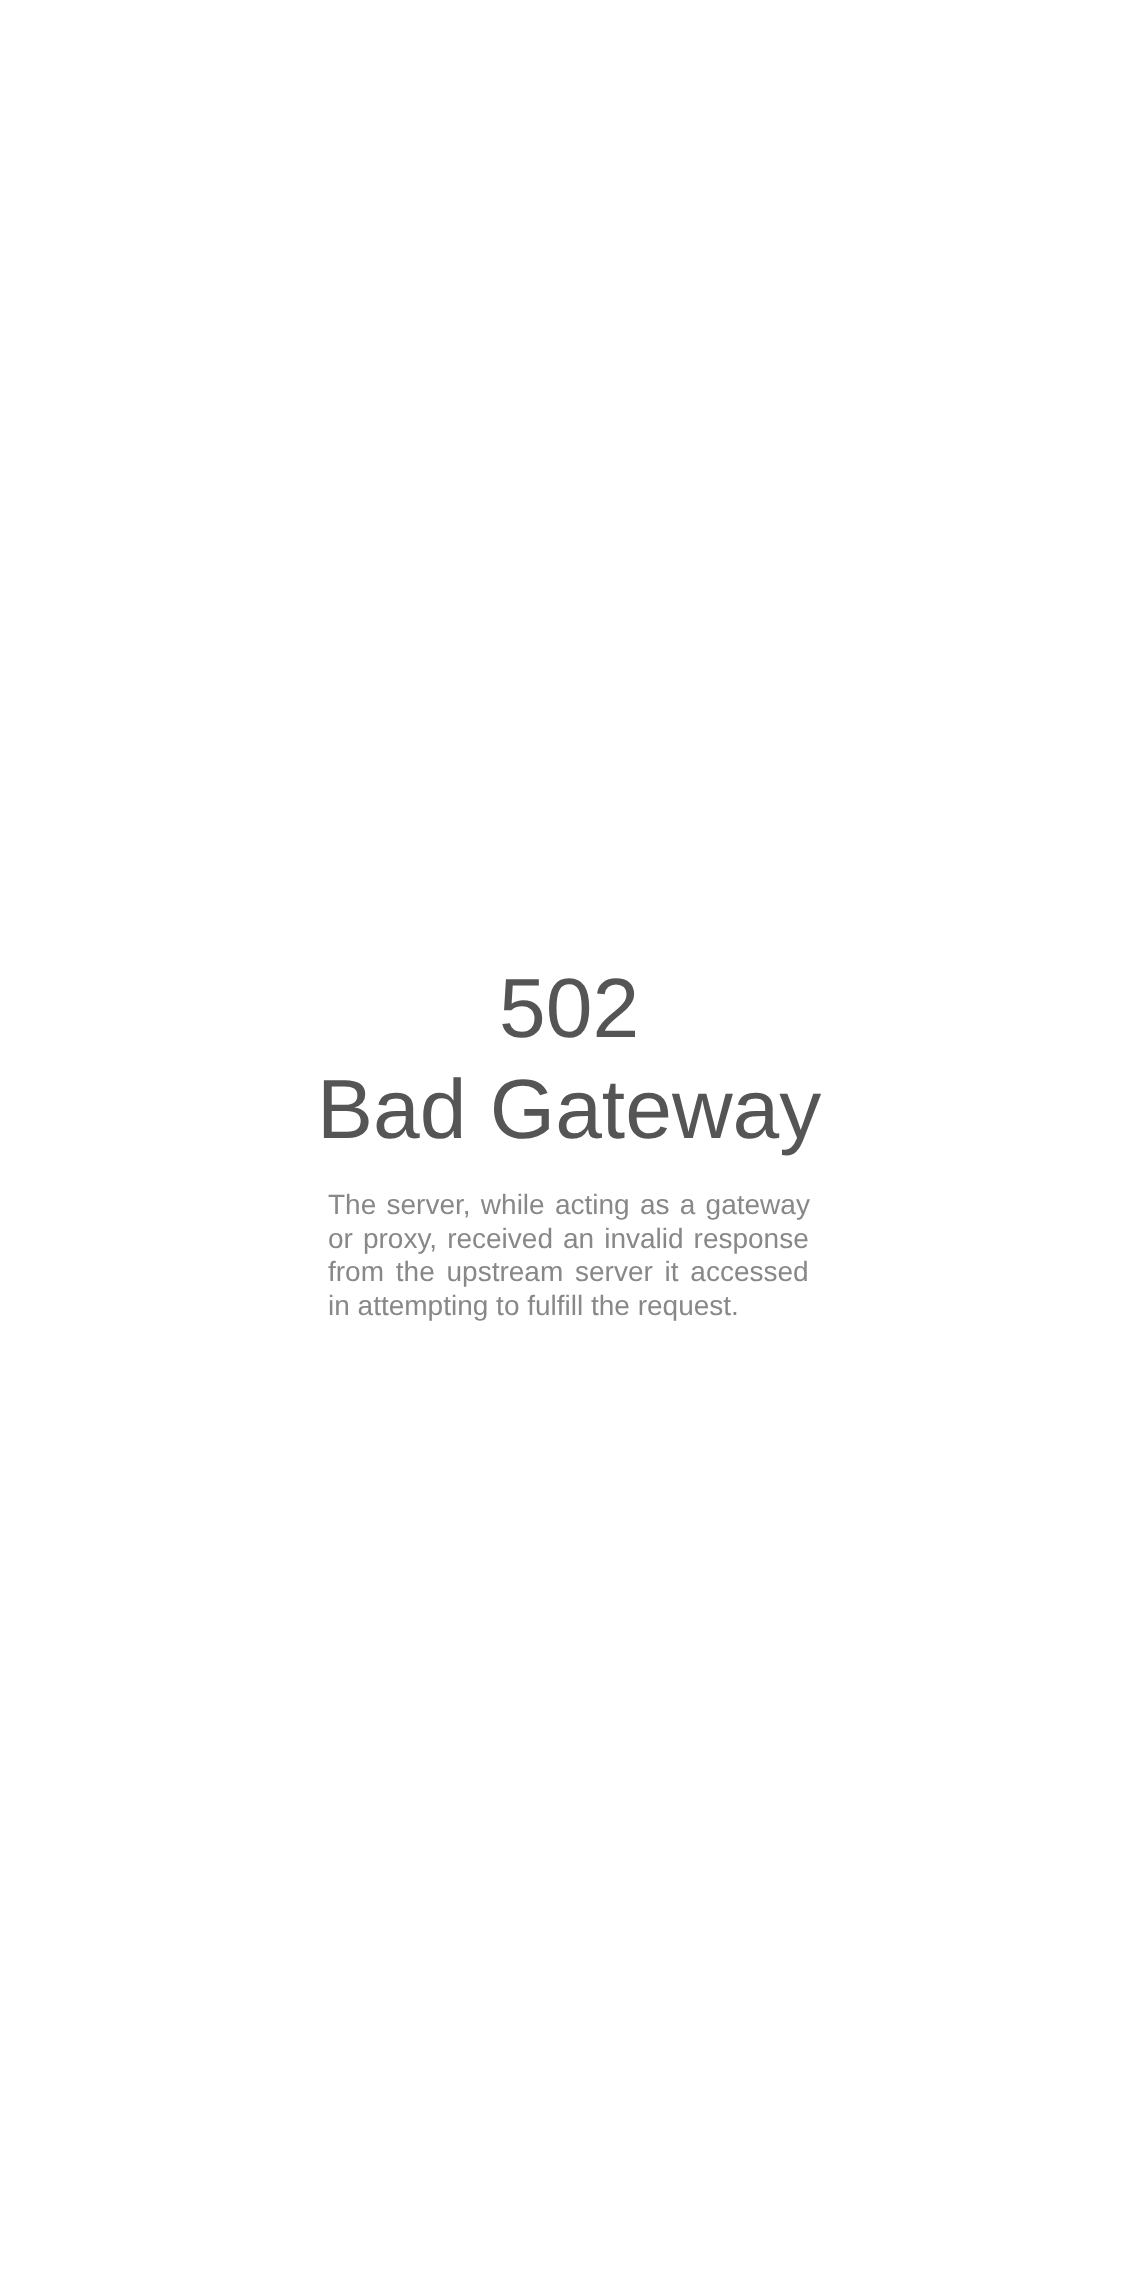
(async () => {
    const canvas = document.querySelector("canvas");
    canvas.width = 1137;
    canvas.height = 2279;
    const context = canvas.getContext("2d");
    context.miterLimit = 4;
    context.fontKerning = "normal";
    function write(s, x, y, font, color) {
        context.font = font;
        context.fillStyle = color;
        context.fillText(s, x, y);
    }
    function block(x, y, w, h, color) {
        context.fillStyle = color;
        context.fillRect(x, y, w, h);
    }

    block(0, 0, 1137, 2279, "rgb(255, 255, 255)");
    write("502", 499, 1037, "84px Liberation Sans", "rgb(85, 85, 85)");
    write("Bad Gateway", 317, 1138, "84px Liberation Sans", "rgb(85, 85, 85)");
    context.wordSpacing = "2.5px";
    write("The server, while acting as a gateway", 328, 1214, "28px Liberation Sans", "rgb(136, 136, 136)");
    context.wordSpacing = "2.25px";
    write("or proxy, received an invalid response", 328, 1248, "28px Liberation Sans", "rgb(136, 136, 136)");
    context.wordSpacing = "4px";
    write("from the upstream server it accessed", 328, 1281, "28px Liberation Sans", "rgb(136, 136, 136)");
    context.wordSpacing = "0px";
    write("in attempting to fulfill the request.", 328, 1315, "28px Liberation Sans", "rgb(136, 136, 136)");
})();
